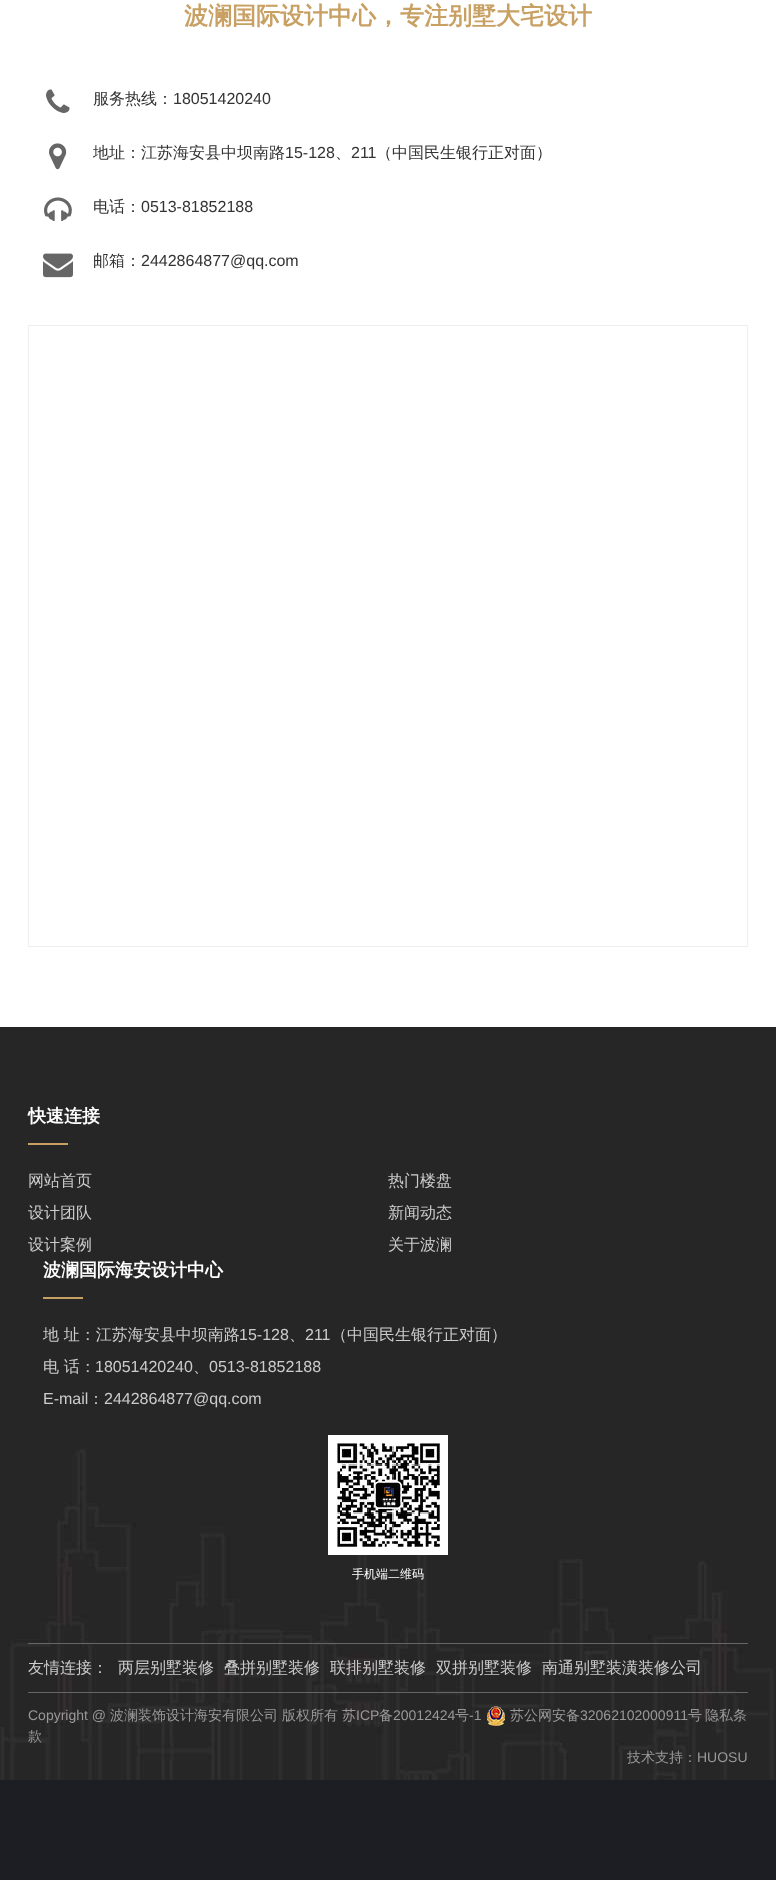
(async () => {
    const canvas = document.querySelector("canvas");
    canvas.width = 776;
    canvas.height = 1880;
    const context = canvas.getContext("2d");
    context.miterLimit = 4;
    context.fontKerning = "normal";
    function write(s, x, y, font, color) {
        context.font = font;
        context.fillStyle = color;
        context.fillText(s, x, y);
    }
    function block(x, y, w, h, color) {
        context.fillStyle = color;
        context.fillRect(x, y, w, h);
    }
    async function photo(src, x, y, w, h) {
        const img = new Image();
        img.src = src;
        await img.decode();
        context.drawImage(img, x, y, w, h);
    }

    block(0, 0, 776, 1880, "rgb(29, 30, 36)");
    block(0, 0, 776, 1027, "rgb(255, 255, 255)");
    write("波澜国际设计中心，专注别墅大宅设计", 184, 24, "bold 24px WenQuanYi Zen Hei", "rgb(200, 160, 99)");
    await photo("media/1.png", 46, 89, 24, 24);
    write("服务热线：", 93, 104, "500 16px WenQuanYi Zen Hei", "rgb(51, 51, 51)");
    write("18051420240", 173, 104, "16px Liberation Sans", "rgb(51, 51, 51)");
    await photo("media/2.png", 49, 143, 18, 27);
    write("地址：江苏海安县中坝南路", 93, 158, "500 16px WenQuanYi Zen Hei", "rgb(51, 51, 51)");
    write("15-128", 285, 158, "16px Liberation Sans", "rgb(51, 51, 51)");
    write("、", 335, 158, "500 16px WenQuanYi Zen Hei", "rgb(51, 51, 51)");
    write("211", 351, 158, "16px Liberation Sans", "rgb(51, 51, 51)");
    write("（中国民生银行正对面）", 376, 158, "500 16px WenQuanYi Zen Hei", "rgb(51, 51, 51)");
    await photo("media/3.png", 44, 197, 28, 24);
    write("电话：", 93, 212, "500 16px WenQuanYi Zen Hei", "rgb(51, 51, 51)");
    write("0513-81852188", 141, 212, "16px Liberation Sans", "rgb(51, 51, 51)");
    await photo("media/4.png", 43, 253, 30, 25);
    write("邮箱：", 93, 266, "500 16px WenQuanYi Zen Hei", "rgb(51, 51, 51)");
    write("2442864877@qq.com", 141, 266, "16px Liberation Sans", "rgb(51, 51, 51)");
    context.strokeStyle = "rgb(238, 238, 238)";
    context.strokeRect(28.5, 325.5, 719, 621);
    block(0, 1027, 776, 753, "rgb(39, 38, 38)");
    await photo("media/5.png", 0, 1449, 774, 331);
    write("快速连接", 28, 1122, "bold 18px WenQuanYi Zen Hei", "rgb(255, 255, 255)");
    block(28, 1143, 40, 2, "rgb(200, 160, 99)");
    write("网站首页", 28, 1186, "500 16px WenQuanYi Zen Hei", "rgb(204, 204, 204)");
    write("热门楼盘", 388, 1186, "500 16px WenQuanYi Zen Hei", "rgb(204, 204, 204)");
    write("设计团队", 28, 1218, "500 16px WenQuanYi Zen Hei", "rgb(204, 204, 204)");
    write("新闻动态", 388, 1218, "500 16px WenQuanYi Zen Hei", "rgb(204, 204, 204)");
    write("设计案例", 28, 1250, "500 16px WenQuanYi Zen Hei", "rgb(204, 204, 204)");
    write("关于波澜", 388, 1250, "500 16px WenQuanYi Zen Hei", "rgb(204, 204, 204)");
    write("波澜国际海安设计中心", 43, 1276, "bold 18px WenQuanYi Zen Hei", "rgb(255, 255, 255)");
    block(43, 1297, 40, 2, "rgb(200, 160, 99)");
    write("地 址：江苏海安县中坝南路", 43, 1340, "500 16px WenQuanYi Zen Hei", "rgb(204, 204, 204)");
    write("15-128", 239, 1340, "16px Liberation Sans", "rgb(204, 204, 204)");
    write("、", 289, 1340, "500 16px WenQuanYi Zen Hei", "rgb(204, 204, 204)");
    write("211", 305, 1340, "16px Liberation Sans", "rgb(204, 204, 204)");
    write("（中国民生银行正对面）", 331, 1340, "500 16px WenQuanYi Zen Hei", "rgb(204, 204, 204)");
    write("电 话：", 43, 1372, "500 16px WenQuanYi Zen Hei", "rgb(204, 204, 204)");
    write("18051420240", 95, 1372, "16px Liberation Sans", "rgb(204, 204, 204)");
    write("、", 193, 1372, "500 16px WenQuanYi Zen Hei", "rgb(204, 204, 204)");
    write("0513-81852188", 209, 1372, "16px Liberation Sans", "rgb(204, 204, 204)");
    write("E-mail", 43, 1404, "16px Liberation Sans", "rgb(204, 204, 204)");
    write("：", 88, 1404, "500 16px WenQuanYi Zen Hei", "rgb(204, 204, 204)");
    write("2442864877@qq.com", 104, 1404, "16px Liberation Sans", "rgb(204, 204, 204)");
    await photo("media/6.png", 328, 1435, 120, 120);
    write("手机端二维码", 352, 1578, "500 12px WenQuanYi Zen Hei", "rgb(255, 255, 255)");
    block(28, 1643, 720, 1, "rgb(102, 102, 102)");
    block(28, 1692, 720, 1, "rgb(102, 102, 102)");
    write("友情连接：", 28, 1673, "500 16px WenQuanYi Zen Hei", "rgb(204, 204, 204)");
    write("两层别墅装修", 118, 1673, "500 16px WenQuanYi Zen Hei", "rgb(204, 204, 204)");
    write("叠拼别墅装修", 224, 1673, "500 16px WenQuanYi Zen Hei", "rgb(204, 204, 204)");
    write("联排别墅装修", 330, 1673, "500 16px WenQuanYi Zen Hei", "rgb(204, 204, 204)");
    write("双拼别墅装修", 436, 1673, "500 16px WenQuanYi Zen Hei", "rgb(204, 204, 204)");
    write("南通别墅装潢装修公司", 542, 1673, "500 16px WenQuanYi Zen Hei", "rgb(204, 204, 204)");
    write("Copyright @", 28, 1720, "14px Liberation Sans", "rgb(153, 153, 153)");
    write("波澜装饰设计海安有限公司", 110, 1720, "500 14px WenQuanYi Zen Hei", "rgb(153, 153, 153)");
    write("版权所有", 282, 1720, "500 14px WenQuanYi Zen Hei", "rgb(153, 153, 153)");
    write("苏", 342, 1720, "500 14px WenQuanYi Zen Hei", "rgb(153, 153, 153)");
    write("ICP", 356, 1720, "14px Liberation Sans", "rgb(153, 153, 153)");
    write("备", 379, 1720, "500 14px WenQuanYi Zen Hei", "rgb(153, 153, 153)");
    write("20012424", 393, 1720, "14px Liberation Sans", "rgb(153, 153, 153)");
    write("号", 455, 1720, "500 14px WenQuanYi Zen Hei", "rgb(153, 153, 153)");
    write("-1", 469, 1720, "14px Liberation Sans", "rgb(153, 153, 153)");
    await photo("media/7.png", 487, 1706, 18, 20);
    write("苏公网安备", 510, 1720, "500 14px WenQuanYi Zen Hei", "rgb(153, 153, 153)");
    write("32062102000911", 580, 1720, "14px Liberation Sans", "rgb(153, 153, 153)");
    write("号", 688, 1720, "500 14px WenQuanYi Zen Hei", "rgb(153, 153, 153)");
    write("隐私条", 705, 1720, "500 14px WenQuanYi Zen Hei", "rgb(153, 153, 153)");
    write("款", 28, 1741, "500 14px WenQuanYi Zen Hei", "rgb(153, 153, 153)");
    write("技术支持：", 627, 1762, "500 14px WenQuanYi Zen Hei", "rgb(153, 153, 153)");
    write("HUOSU", 697, 1762, "14px Liberation Sans", "rgb(153, 153, 153)");
})();
